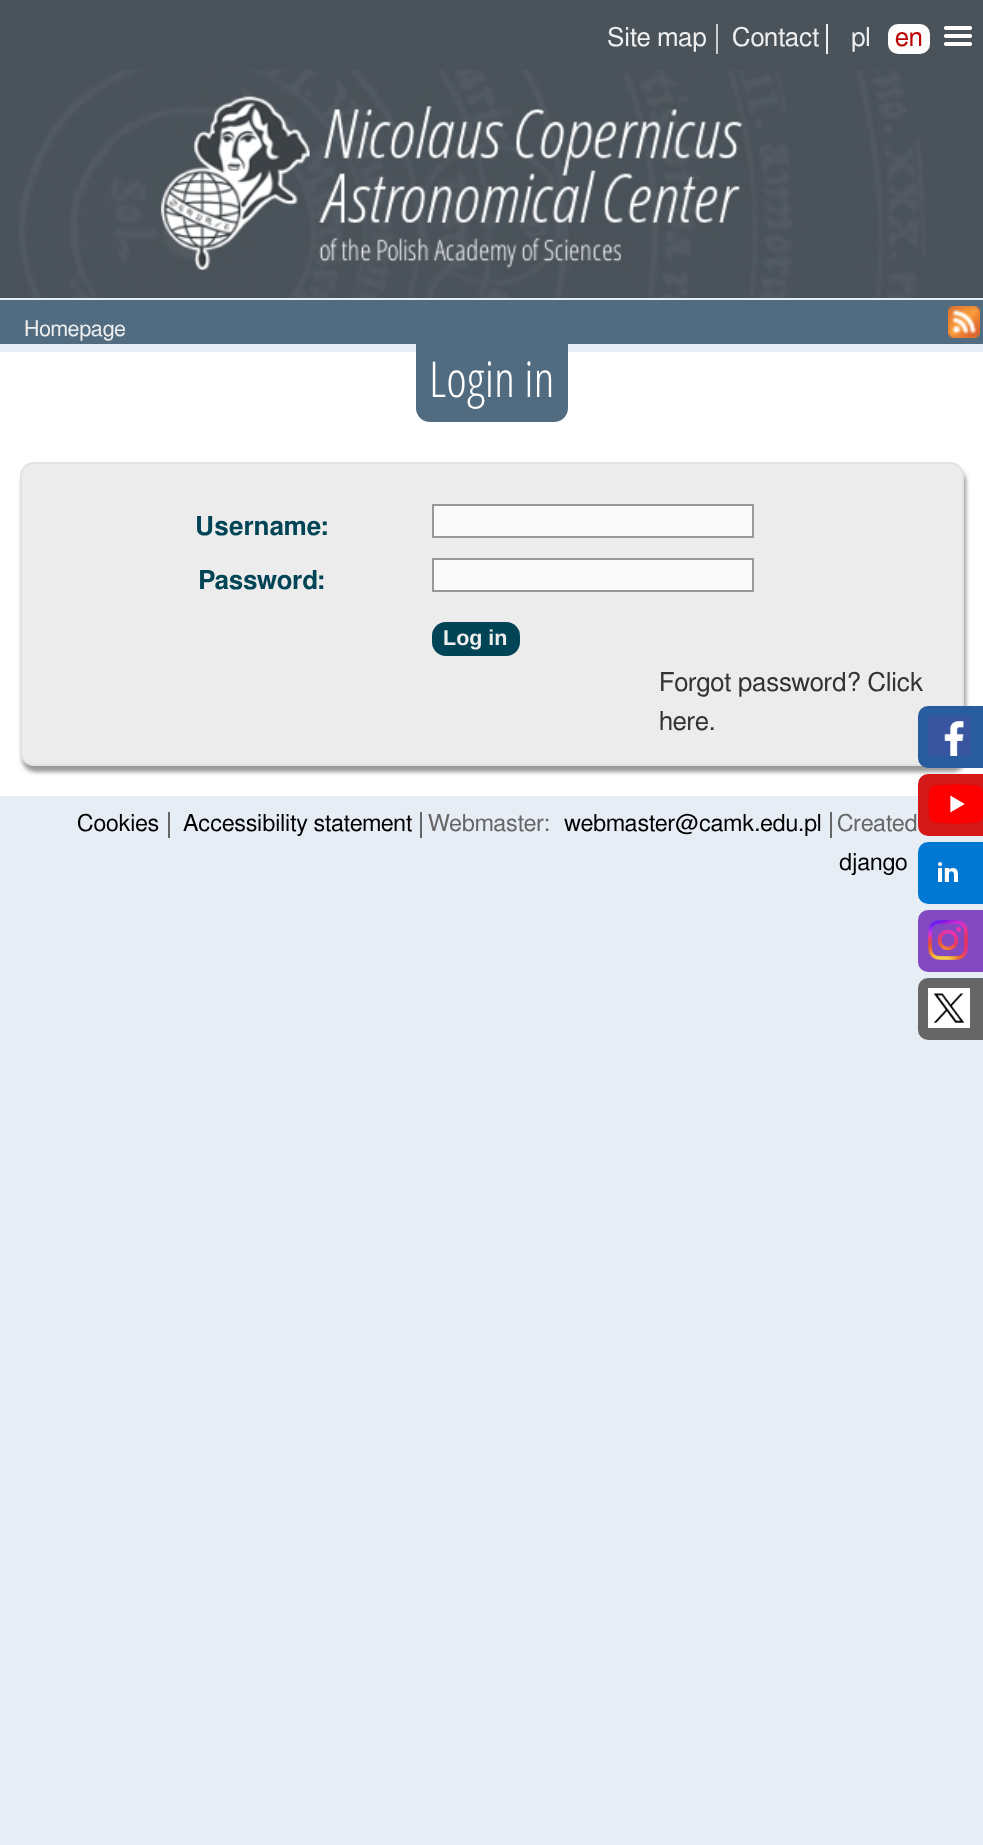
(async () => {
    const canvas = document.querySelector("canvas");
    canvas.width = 983;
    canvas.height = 1845;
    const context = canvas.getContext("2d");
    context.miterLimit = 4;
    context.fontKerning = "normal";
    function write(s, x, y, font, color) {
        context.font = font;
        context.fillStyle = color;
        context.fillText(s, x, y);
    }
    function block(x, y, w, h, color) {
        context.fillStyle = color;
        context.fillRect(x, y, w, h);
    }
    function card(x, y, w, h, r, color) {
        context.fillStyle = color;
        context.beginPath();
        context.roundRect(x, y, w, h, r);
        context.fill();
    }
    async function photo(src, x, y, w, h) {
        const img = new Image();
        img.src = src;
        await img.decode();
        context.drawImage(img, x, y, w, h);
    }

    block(0, 0, 983, 1845, "rgb(231, 237, 245)");
    block(0, 0, 983, 298, "rgb(74, 83, 90)");
    write("Site map", 607, 46, "26px FreeSans", "rgb(238, 238, 238)");
    block(716, 24, 2, 30, "rgb(204, 204, 204)");
    write("Contact", 732, 46, "26px FreeSans", "rgb(238, 238, 238)");
    block(826, 24, 2, 30, "rgb(238, 238, 238)");
    write("pl", 851, 46, "26px FreeSans", "rgb(238, 238, 238)");
    card(888, 24, 42, 30, 10, "rgb(254, 254, 254)");
    write("en", 895, 46, "26px FreeSans", "rgb(187, 0, 0)");
    await photo("media/1.png", 944, 26, 28, 20);
    await photo("media/2.png", 19, 70, 907, 228);
    block(0, 300, 983, 44, "rgb(81, 108, 129)");
    write("Homepage", 24, 336, "21.5px FreeSans", "rgb(238, 238, 238)");
    await photo("media/3.png", 948, 306, 32, 32);
    block(0, 352, 983, 444, "rgb(255, 255, 255)");
    context.fillStyle = "rgb(81, 108, 129)";
    context.beginPath();
    context.roundRect(416, 342, 152, 80, [0, 0, 14, 14]);
    context.fill();
    write("Login in", 429, 397, "300 49.5px Open Sans Condensed", "rgb(255, 255, 255)");
    context.fillStyle = "rgb(153, 153, 153)";
    context.filter = "blur(2px)";
    context.beginPath();
    context.roundRect(22, 468, 944, 304, 14);
    context.fill();
    context.filter = "none";
    context.fillStyle = "rgb(236, 236, 236)";
    context.beginPath();
    context.roundRect(21, 463, 942, 302, 13);
    context.fill();
    context.strokeStyle = "rgb(227, 227, 227)";
    context.lineWidth = 2;
    context.stroke();
    write("Username:", 195, 535, "600 26px FreeSans", "rgb(0, 68, 85)");
    context.fillStyle = "rgb(250, 250, 250)";
    context.beginPath();
    context.rect(433, 505, 320, 32);
    context.fill();
    context.strokeStyle = "rgb(153, 153, 153)";
    context.stroke();
    write("Password:", 198, 589, "600 26px FreeSans", "rgb(0, 68, 85)");
    context.fillStyle = "rgb(250, 250, 250)";
    context.beginPath();
    context.rect(433, 559, 320, 32);
    context.fill();
    context.stroke();
    card(432, 622, 88, 34, 14, "rgb(0, 68, 85)");
    write("Log in", 443, 645, "bold 21.5px Liberation Sans", "rgb(238, 238, 238)");
    write("Forgot password? Click", 659, 691, "26px FreeSans", "rgb(51, 51, 51)");
    write("here.", 659, 730, "26px FreeSans", "rgb(51, 51, 51)");
    write("Cookies", 77, 831, "23.4px FreeSans", "rgb(0, 0, 0)");
    block(168, 812, 2, 26, "rgb(102, 102, 102)");
    write("Accessibility statement", 183, 831, "23.4px FreeSans", "rgb(0, 0, 0)");
    block(420, 812, 2, 26, "rgb(102, 102, 102)");
    write("Webmaster:", 428, 831, "23.4px FreeSans", "rgb(102, 102, 102)");
    write("webmaster@camk.edu.pl", 564, 831, "23.4px FreeSans", "rgb(0, 0, 0)");
    block(830, 812, 2, 26, "rgb(102, 102, 102)");
    write("Created", 837, 831, "23.4px FreeSans", "rgb(102, 102, 102)");
    write("django", 839, 870, "23.4px FreeSans", "rgb(0, 0, 0)");
    card(918, 706, 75, 62, 10, "rgb(41, 92, 158)");
    await photo("media/4.png", 928, 716, 42, 40);
    card(918, 774, 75, 62, 10, "rgb(212, 25, 24)");
    await photo("media/5.png", 928, 784, 55, 40);
    card(918, 842, 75, 62, 10, "rgb(0, 120, 212)");
    await photo("media/6.png", 937, 861, 22, 22);
    card(918, 910, 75, 62, 10, "rgb(131, 73, 192)");
    await photo("media/7.png", 928, 920, 40, 40);
    card(918, 978, 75, 62, 10, "rgb(102, 102, 102)");
    await photo("media/8.png", 928, 988, 42, 40);
})();
